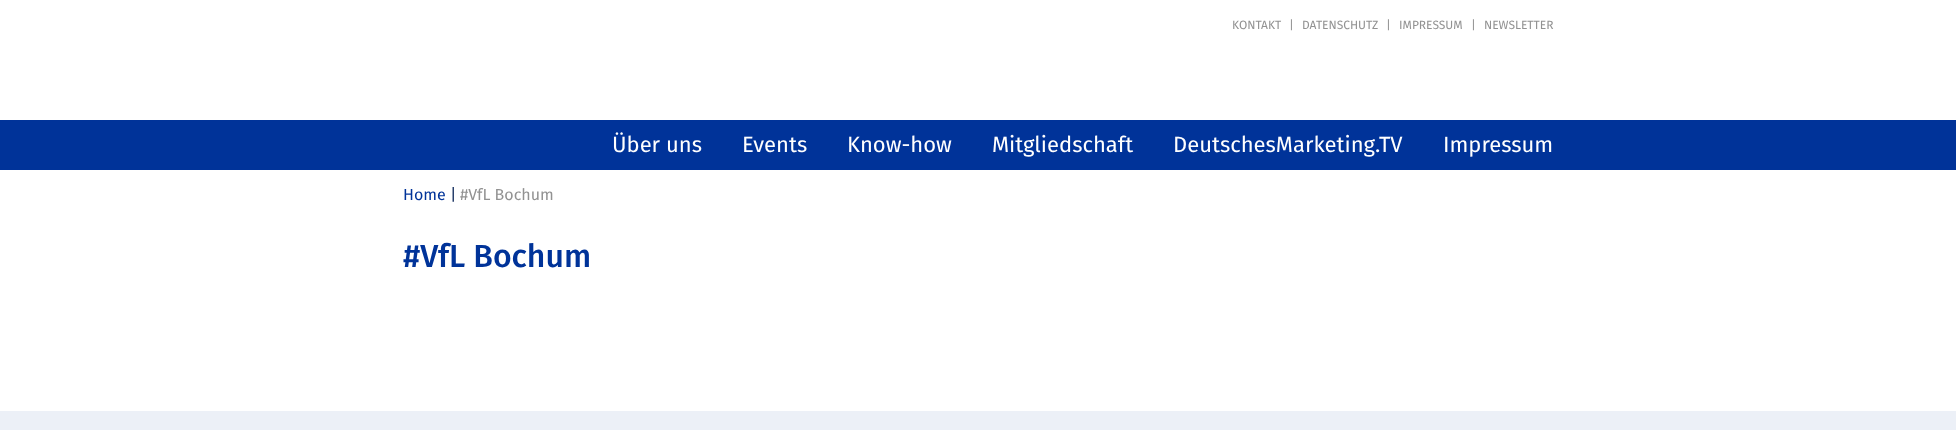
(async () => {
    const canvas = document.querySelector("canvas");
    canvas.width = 1956;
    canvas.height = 430;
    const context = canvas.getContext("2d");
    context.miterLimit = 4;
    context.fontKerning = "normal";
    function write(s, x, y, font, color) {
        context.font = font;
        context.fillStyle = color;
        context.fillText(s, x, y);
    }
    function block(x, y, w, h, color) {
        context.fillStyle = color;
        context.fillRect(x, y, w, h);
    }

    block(0, 0, 1956, 430, "rgb(255, 255, 255)");
    block(0, 120, 1956, 50, "rgb(0, 51, 153)");
    write("KONTAKT", 1232, 29, "12px Fira Sans", "rgb(146, 146, 146)");
    write("|", 1289, 29, "12px Fira Sans", "rgb(146, 146, 146)");
    write("DATENSCHUTZ", 1302, 29, "12px Fira Sans", "rgb(146, 146, 146)");
    write("|", 1386, 29, "12px Fira Sans", "rgb(146, 146, 146)");
    write("IMPRESSUM", 1399, 29, "12px Fira Sans", "rgb(146, 146, 146)");
    write("|", 1471, 29, "12px Fira Sans", "rgb(146, 146, 146)");
    write("NEWSLETTER", 1484, 29, "12px Fira Sans", "rgb(146, 146, 146)");
    write("Über uns", 612, 152, "22px Fira Sans", "rgb(255, 255, 255)");
    write("Events", 742, 152, "22px Fira Sans", "rgb(255, 255, 255)");
    write("Know-how", 847, 152, "22px Fira Sans", "rgb(255, 255, 255)");
    write("Mitgliedschaft", 992, 152, "22px Fira Sans", "rgb(255, 255, 255)");
    write("DeutschesMarketing.TV", 1173, 152, "22px Fira Sans", "rgb(255, 255, 255)");
    write("Impressum", 1443, 152, "22px Fira Sans", "rgb(255, 255, 255)");
    write("Home", 403, 200, "16px Fira Sans", "rgb(0, 51, 153)");
    write("|", 450, 200, "16px Fira Sans", "rgb(9, 35, 86)");
    write("#VfL Bochum", 460, 200, "16px Fira Sans", "rgb(146, 146, 146)");
    write("#VfL Bochum", 403, 267, "500 32px Fira Sans", "rgb(0, 51, 153)");
    block(0, 411, 1956, 19, "rgb(236, 240, 247)");
})();
